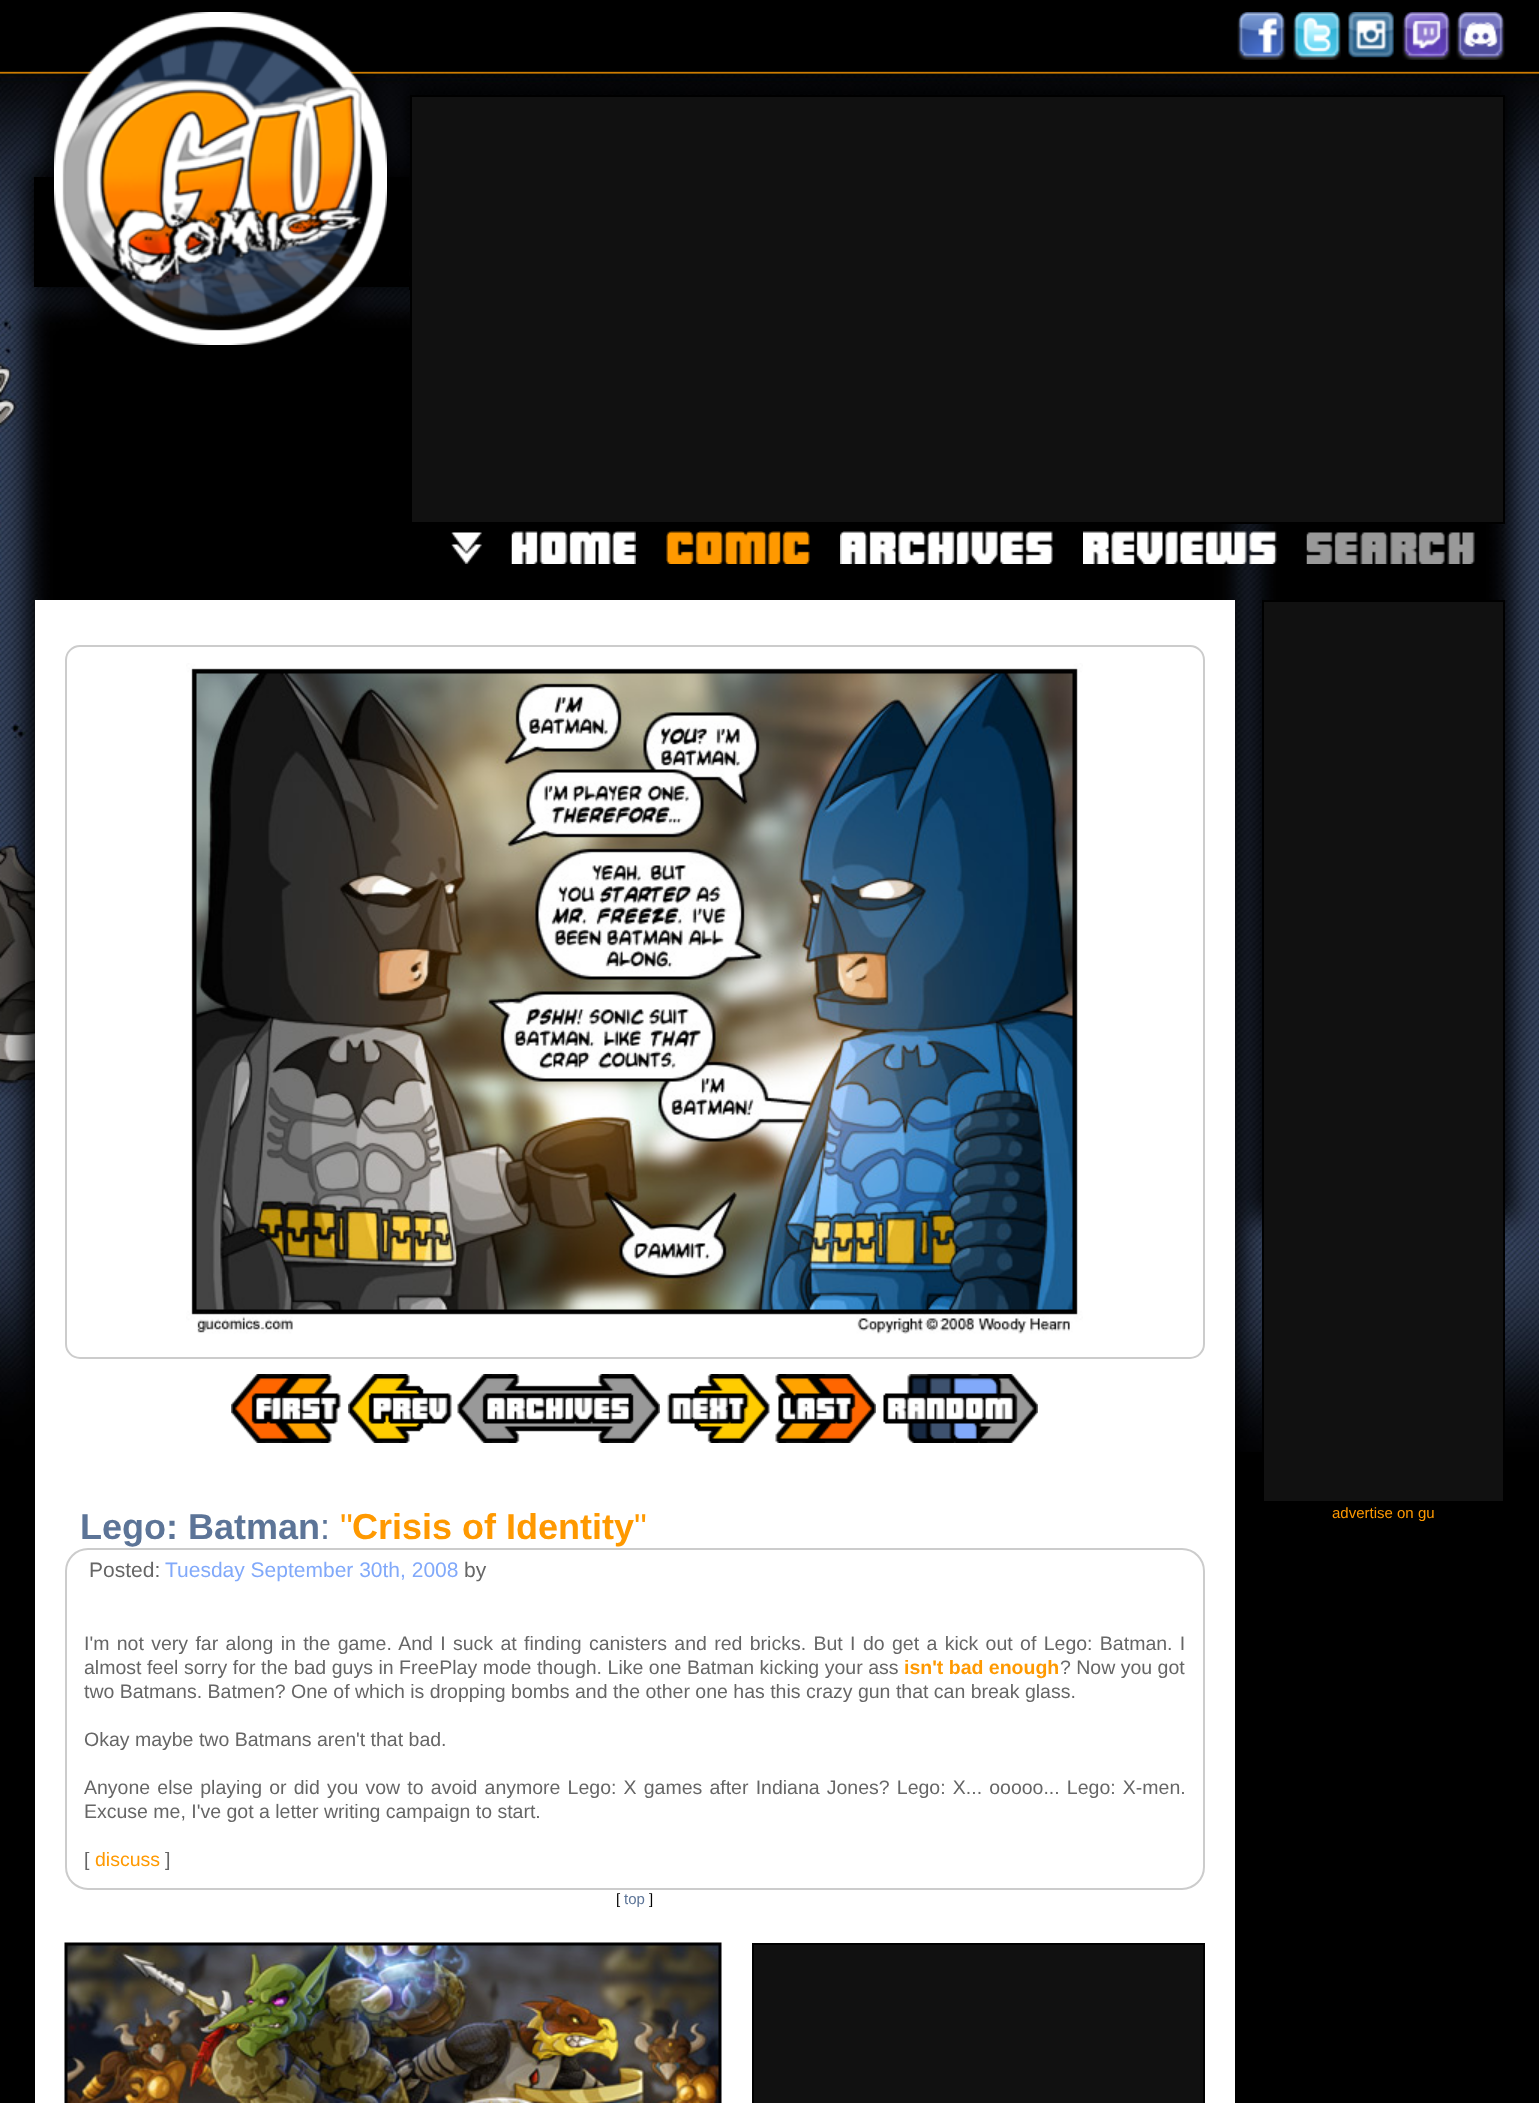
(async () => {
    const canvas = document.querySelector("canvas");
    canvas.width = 1539;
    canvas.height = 2103;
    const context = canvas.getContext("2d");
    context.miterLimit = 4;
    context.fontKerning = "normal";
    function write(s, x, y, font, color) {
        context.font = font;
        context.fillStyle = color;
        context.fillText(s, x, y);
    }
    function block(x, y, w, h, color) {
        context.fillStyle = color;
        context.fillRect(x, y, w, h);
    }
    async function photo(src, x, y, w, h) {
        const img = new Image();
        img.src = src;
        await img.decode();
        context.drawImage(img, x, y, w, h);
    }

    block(0, 0, 1539, 2103, "rgb(0, 0, 0)");
    await photo("media/1.png", 0, 71, 1539, 1381);
    block(34, 177, 375, 110, "rgb(0, 0, 0)");
    await photo("media/2.png", 54, 12, 333, 333);
    await photo("media/3.png", 1237, 12, 49, 48);
    await photo("media/4.png", 1293, 12, 48, 48);
    await photo("media/5.png", 1348, 12, 46, 46);
    await photo("media/6.png", 1402, 12, 49, 48);
    await photo("media/7.png", 1456, 12, 49, 48);
    block(409, 276, 1, 14, "rgb(0, 0, 0)");
    context.fillStyle = "rgb(17, 17, 17)";
    context.beginPath();
    context.rect(411, 96, 1093, 427);
    context.fill();
    context.strokeStyle = "rgb(0, 0, 0)";
    context.lineWidth = 2;
    context.stroke();
    await photo("media/8.png", 451, 532, 31, 32);
    await photo("media/9.png", 511, 531, 125, 33);
    await photo("media/10.png", 666, 531, 144, 33);
    await photo("media/11.png", 840, 531, 213, 33);
    await photo("media/12.png", 1083, 531, 194, 33);
    await photo("media/13.png", 1306, 532, 169, 32);
    block(35, 600, 1200, 1503, "rgb(255, 255, 255)");
    context.beginPath();
    context.roundRect(66, 646, 1138, 712, 14);
    context.strokeStyle = "rgb(204, 204, 204)";
    context.stroke();
    await photo("media/14.png", 186, 663, 897, 671);
    await photo("media/15.png", 231, 1374, 110, 69);
    await photo("media/16.png", 348, 1374, 104, 69);
    await photo("media/17.png", 457, 1374, 203, 69);
    await photo("media/18.png", 667, 1374, 103, 69);
    await photo("media/19.png", 775, 1374, 101, 69);
    await photo("media/20.png", 883, 1374, 155, 69);
    write("Lego: Batman", 80, 1539, "bold 36px Liberation Sans", "rgb(92, 116, 151)");
    write("\"", 340, 1539, "36px Liberation Sans", "rgb(255, 153, 0)");
    write("Crisis of Identity", 352, 1539, "bold 36px Liberation Sans", "rgb(255, 153, 0)");
    write("\"", 634, 1539, "36px Liberation Sans", "rgb(255, 153, 0)");
    write(":", 320, 1539, "36px Liberation Sans", "rgb(92, 116, 151)");
    context.beginPath();
    context.roundRect(66, 1549, 1138, 340, 22);
    context.stroke();
    write("Posted:", 89, 1577, "21px Liberation Sans", "rgb(102, 102, 102)");
    write("Tuesday September 30th, 2008", 165, 1577, "21px Liberation Sans", "rgb(129, 169, 250)");
    write("by", 464, 1577, "21px Liberation Sans", "rgb(102, 102, 102)");
    context.wordSpacing = "1.95px";
    write("I'm not very far along in the game. And I suck at finding canisters and red bricks. But I do get a kick out of Lego: Batman. I", 84, 1650, "19.5px Liberation Sans", "rgb(102, 102, 102)");
    context.wordSpacing = "0.1px";
    write("almost feel sorry for the bad guys in FreePlay mode though. Like one Batman kicking your ass", 84, 1674, "19.5px Liberation Sans", "rgb(102, 102, 102)");
    context.wordSpacing = "0px";
    write("isn't bad enough", 904, 1674, "bold 19.5px Liberation Sans", "rgb(255, 153, 0)");
    write("? Now you got", 1060, 1674, "19.5px Liberation Sans", "rgb(102, 102, 102)");
    write("two Batmans. Batmen? One of which is dropping bombs and the other one has this crazy gun that can break glass.", 84, 1698, "19.5px Liberation Sans", "rgb(102, 102, 102)");
    write("Okay maybe two Batmans aren't that bad.", 84, 1746, "19.5px Liberation Sans", "rgb(102, 102, 102)");
    context.wordSpacing = "1.75px";
    write("Anyone else playing or did you vow to avoid anymore Lego: X games after Indiana Jones? Lego: X... ooooo... Lego: X-men.", 84, 1794, "19.5px Liberation Sans", "rgb(102, 102, 102)");
    context.wordSpacing = "0px";
    write("Excuse me, I've got a letter writing campaign to start.", 84, 1818, "19.5px Liberation Sans", "rgb(102, 102, 102)");
    write("[", 84, 1866, "19.5px Liberation Sans", "rgb(102, 102, 102)");
    write("discuss", 95, 1866, "19.5px Liberation Sans", "rgb(255, 153, 0)");
    write("]", 165, 1866, "19.5px Liberation Sans", "rgb(102, 102, 102)");
    write("[", 616, 1904, "15px Liberation Sans", "rgb(0, 0, 0)");
    write("top", 624, 1904, "15px Liberation Sans", "rgb(92, 116, 151)");
    write("]", 649, 1904, "15px Liberation Sans", "rgb(0, 0, 0)");
    await photo("media/21.png", 64, 1942, 658, 161);
    context.fillStyle = "rgb(17, 17, 17)";
    context.beginPath();
    context.rect(753, 1944, 451, 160);
    context.fill();
    context.strokeStyle = "rgb(0, 0, 0)";
    context.stroke();
    context.beginPath();
    context.rect(1263, 601, 241, 901);
    context.fill();
    context.stroke();
    write("advertise on gu", 1332, 1518, "15px Liberation Sans", "rgb(255, 153, 0)");
})();
